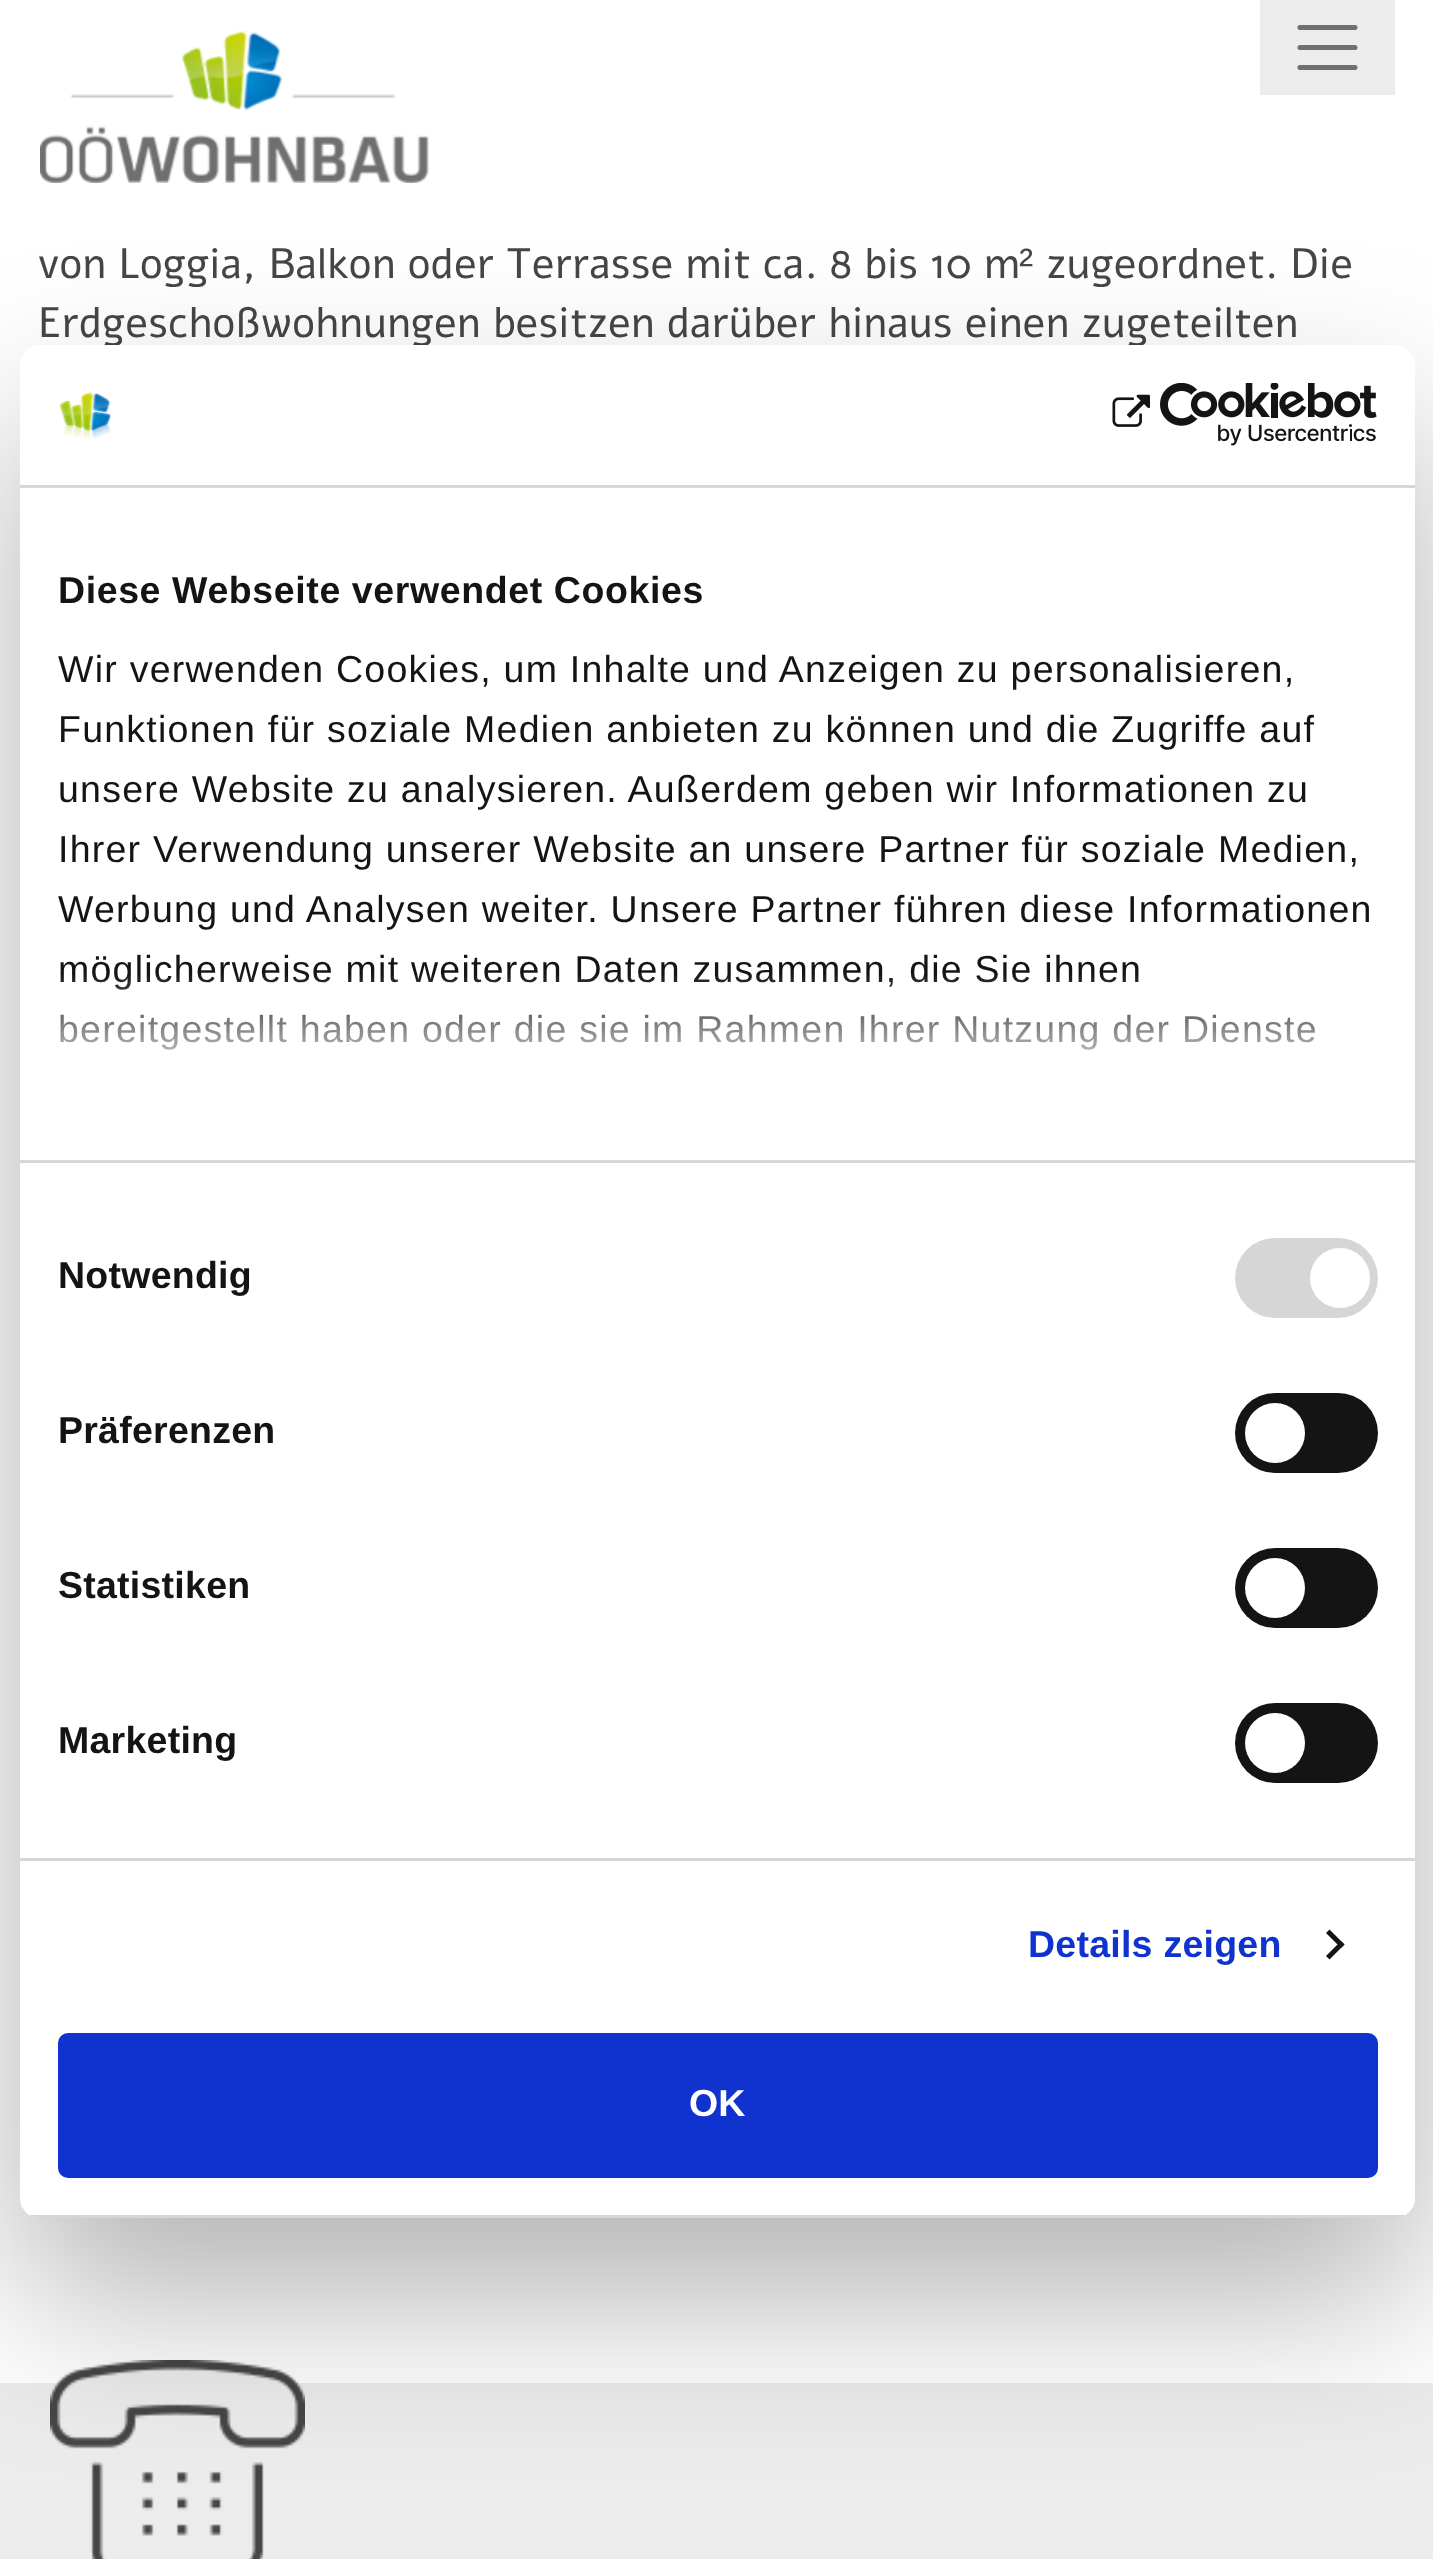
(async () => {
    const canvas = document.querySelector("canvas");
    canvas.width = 1433;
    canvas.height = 2559;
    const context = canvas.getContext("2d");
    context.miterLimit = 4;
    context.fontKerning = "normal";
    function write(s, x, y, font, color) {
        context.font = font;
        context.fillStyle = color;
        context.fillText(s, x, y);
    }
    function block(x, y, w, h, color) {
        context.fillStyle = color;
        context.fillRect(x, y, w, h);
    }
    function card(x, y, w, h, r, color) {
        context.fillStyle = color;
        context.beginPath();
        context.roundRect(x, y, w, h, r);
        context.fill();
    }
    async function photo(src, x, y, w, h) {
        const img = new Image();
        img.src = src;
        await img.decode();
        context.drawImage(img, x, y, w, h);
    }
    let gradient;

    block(0, 0, 1433, 2559, "rgb(255, 255, 255)");
    await photo("media/1.png", 40, 31, 389, 152);
    block(1260, 0, 135, 95, "rgb(236, 236, 236)");
    context.beginPath();
    context.moveTo(1300, 27.5);
    context.lineTo(1355, 27.5);
    context.moveTo(1300, 47.5);
    context.lineTo(1355, 47.5);
    context.moveTo(1300, 67.5);
    context.lineTo(1355, 67.5);
    context.strokeStyle = "rgb(111, 111, 110)";
    context.lineWidth = 5;
    context.lineCap = "round";
    context.stroke();
    write("von Loggia, Balkon oder Terrasse mit ca. 8 bis 10 m", 38, 278, "42.5px Alef", "rgb(70, 70, 70)");
    write("²", 1019, 278, "42.5px Liberation Sans", "rgb(70, 70, 70)");
    write("zugeordnet. Die", 1046, 278, "42.5px Alef", "rgb(70, 70, 70)");
    write("Erdgeschoßwohnungen besitzen darüber hinaus einen zugeteilten", 38, 337, "42.5px Alef", "rgb(70, 70, 70)");
    block(0, 2383, 1433, 176, "rgb(236, 236, 236)");
    await photo("media/2.png", 50, 2360, 255, 199);
    context.fillStyle = "rgba(0, 0, 0, 0.3)";
    context.filter = "blur(85px)";
    context.beginPath();
    context.roundRect(20, 425, 1395, 1873, 20);
    context.fill();
    context.filter = "none";
    card(20, 345, 1395, 1873, 20, "rgb(255, 255, 255)");
    block(20, 485, 1395, 3, "rgb(214, 214, 214)");
    await photo("media/3.png", 59, 392, 53, 48);
    await photo("media/4.png", 1112, 394, 38, 33);
    await photo("media/5.png", 1160, 383, 217, 63);
    block(20, 1160, 1395, 3, "rgb(214, 214, 214)");
    context.letterSpacing = "0.6px";
    write("Diese Webseite verwendet Cookies", 58, 603, "bold 37.5px Liberation Sans", "rgb(20, 20, 20)");
    context.letterSpacing = "1.25px";
    write("Wir verwenden Cookies, um Inhalte und Anzeigen zu personalisieren,", 58, 682, "37.5px Liberation Sans", "rgb(20, 20, 20)");
    write("Funktionen für soziale Medien anbieten zu können und die Zugriffe auf", 58, 742, "37.5px Liberation Sans", "rgb(20, 20, 20)");
    write("unsere Website zu analysieren. Außerdem geben wir Informationen zu", 58, 802, "37.5px Liberation Sans", "rgb(20, 20, 20)");
    write("Ihrer Verwendung unserer Website an unsere Partner für soziale Medien,", 58, 862, "37.5px Liberation Sans", "rgb(20, 20, 20)");
    write("Werbung und Analysen weiter. Unsere Partner führen diese Informationen", 58, 922, "37.5px Liberation Sans", "rgb(20, 20, 20)");
    write("möglicherweise mit weiteren Daten zusammen, die Sie ihnen", 58, 982, "37.5px Liberation Sans", "rgb(20, 20, 20)");
    write("bereitgestellt haben oder die sie im Rahmen Ihrer Nutzung der Dienste", 58, 1042, "37.5px Liberation Sans", "rgb(20, 20, 20)");
    gradient = context.createLinearGradient(701, 1159, 701, 972);
    gradient.addColorStop(0, "rgb(255, 255, 255)");
    gradient.addColorStop(0.5, "rgba(255, 255, 255, 0.8)");
    gradient.addColorStop(1, "rgba(255, 255, 255, 0)");
    context.fillStyle = gradient;
    context.fillRect(59, 975, 1256, 75);
    block(20, 1858, 1395, 3, "rgb(214, 214, 214)");
    context.letterSpacing = "0.25px";
    write("Notwendig", 58, 1288, "bold 37.5px Liberation Sans", "rgb(20, 20, 20)");
    card(1235, 1238, 143, 80, 40, "rgb(214, 214, 214)");
    context.fillStyle = "rgb(255, 255, 255)";
    context.beginPath();
    context.arc(1340, 1278, 30, 0, Math.PI * 2);
    context.fill();
    write("Präferenzen", 58, 1443, "bold 37.5px Liberation Sans", "rgb(20, 20, 20)");
    card(1235, 1393, 143, 80, 40, "rgb(20, 20, 20)");
    context.fillStyle = "rgb(255, 255, 255)";
    context.beginPath();
    context.arc(1275, 1433, 30, 0, Math.PI * 2);
    context.fill();
    write("Statistiken", 58, 1598, "bold 37.5px Liberation Sans", "rgb(20, 20, 20)");
    card(1235, 1548, 143, 80, 40, "rgb(20, 20, 20)");
    context.fillStyle = "rgb(255, 255, 255)";
    context.beginPath();
    context.arc(1275, 1588, 30, 0, Math.PI * 2);
    context.fill();
    write("Marketing", 58, 1753, "bold 37.5px Liberation Sans", "rgb(20, 20, 20)");
    card(1235, 1703, 143, 80, 40, "rgb(20, 20, 20)");
    context.fillStyle = "rgb(255, 255, 255)";
    context.beginPath();
    context.arc(1275, 1743, 30, 0, Math.PI * 2);
    context.fill();
    write("Details zeigen", 1028, 1957, "bold 37.5px Liberation Sans", "rgb(16, 50, 207)");
    context.fillStyle = "rgb(20, 20, 20)";
    context.beginPath();
    context.moveTo(1329.5, 1929.5);
    context.lineTo(1344.5, 1944.5);
    context.lineTo(1341, 1948);
    context.lineTo(1326, 1933);
    context.closePath();
    context.fill();
    context.beginPath();
    context.moveTo(1341, 1941);
    context.lineTo(1344.5, 1944.5);
    context.lineTo(1329.5, 1959.5);
    context.lineTo(1326, 1956);
    context.closePath();
    context.fill();
    context.save();
    context.beginPath();
    context.roundRect(20, 345, 1395, 1873, 20);
    context.clip();
    block(29, 2215, 1377, 3, "rgb(214, 214, 214)");
    context.restore();
    context.fillStyle = "rgb(16, 50, 207)";
    context.beginPath();
    context.roundRect(60.5, 2035.5, 1315, 140, 7.5);
    context.fill();
    context.strokeStyle = "rgb(16, 50, 207)";
    context.stroke();
    context.letterSpacing = "0px";
    write("OK", 689, 2116, "bold 37.5px Liberation Sans", "rgb(255, 255, 255)");
})();
